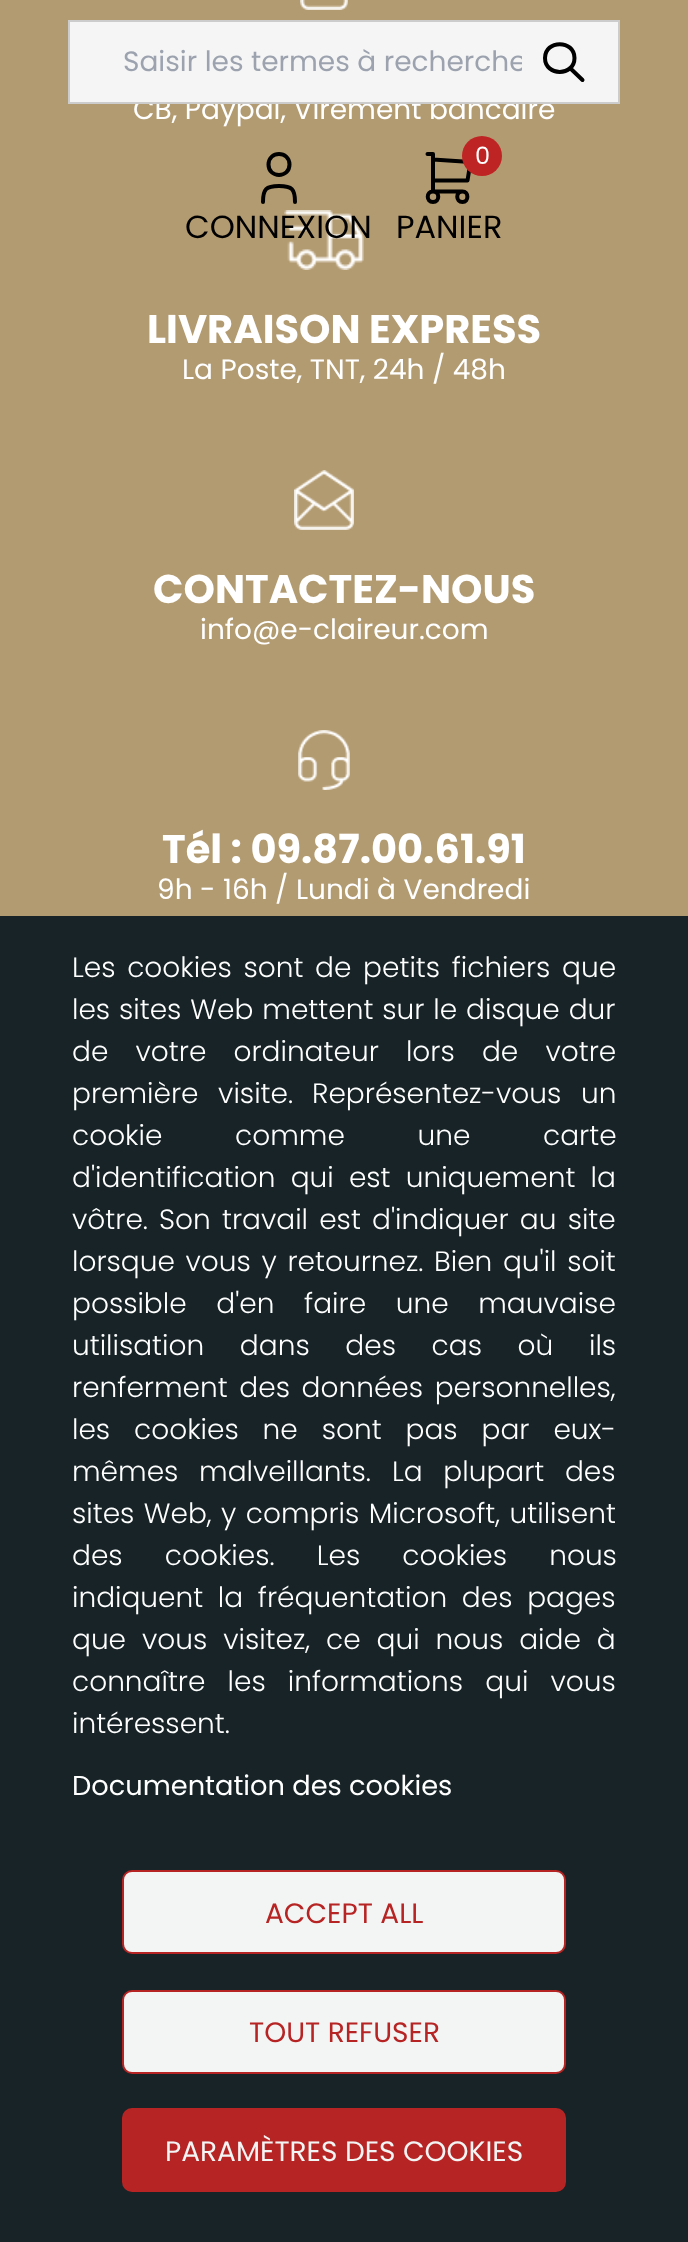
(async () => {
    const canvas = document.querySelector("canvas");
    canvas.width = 688;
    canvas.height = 2242;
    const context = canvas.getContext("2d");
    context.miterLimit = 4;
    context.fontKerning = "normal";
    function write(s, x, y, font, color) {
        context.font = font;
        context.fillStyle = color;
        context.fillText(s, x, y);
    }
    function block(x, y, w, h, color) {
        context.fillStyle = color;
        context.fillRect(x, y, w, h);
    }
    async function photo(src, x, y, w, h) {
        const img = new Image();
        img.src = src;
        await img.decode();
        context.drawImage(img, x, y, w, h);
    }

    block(0, 0, 688, 2242, "rgb(179, 155, 113)");
    write("CB, Paypal, Virement bancaire", 133, 119, "28px Poppins", "rgb(255, 255, 255)");
    context.fillStyle = "rgb(245, 245, 245)";
    context.beginPath();
    context.rect(69, 21, 550, 82);
    context.fill();
    context.strokeStyle = "rgb(204, 204, 204)";
    context.lineWidth = 2;
    context.stroke();
    context.save();
    context.beginPath();
    context.rect(122, 42, 400, 42);
    context.clip();
    write("Saisir les termes à recherche", 123, 71, "28px Poppins", "rgb(156, 163, 175)");
    context.restore();
    context.beginPath();
    context.moveTo(582.5, 80);
    context.lineTo(570, 68);
    context.moveTo(545, 58);
    context.bezierCurveTo(545, 76.5, 574.5, 76.5, 574.5, 58);
    context.bezierCurveTo(574.5, 39.5, 545, 39.5, 545, 58);
    context.closePath();
    context.strokeStyle = "rgb(0, 0, 0)";
    context.lineWidth = 4;
    context.lineCap = "round";
    context.lineJoin = "round";
    context.stroke();
    context.beginPath();
    context.moveTo(263, 202);
    context.bezierCurveTo(263, 189, 266, 186, 279, 186);
    context.bezierCurveTo(292, 186, 295, 189, 295, 202);
    context.moveTo(268.5, 164.5);
    context.bezierCurveTo(268.5, 178.5, 289.5, 178.5, 289.5, 164.5);
    context.bezierCurveTo(289.5, 150.5, 268.5, 150.5, 268.5, 164.5);
    context.closePath();
    context.stroke();
    await photo("media/2.png", 284, 210, 80, 60);
    write("CONNEXION", 185, 238, "32px Poppins", "rgb(0, 0, 0)");
    context.beginPath();
    context.moveTo(433, 191.5);
    context.bezierCurveTo(440, 191.5, 440, 202, 433, 202);
    context.bezierCurveTo(426, 202, 426, 191.5, 433, 191.5);
    context.closePath();
    context.moveTo(433, 191.5);
    context.lineTo(462.5, 191.5);
    context.moveTo(433, 191.5);
    context.lineTo(433, 154);
    context.lineTo(427.5, 154);
    context.moveTo(462.5, 191.5);
    context.bezierCurveTo(469, 191.5, 469, 202, 462.5, 202);
    context.bezierCurveTo(455.5, 202, 455.5, 191.5, 462.5, 191.5);
    context.closePath();
    context.moveTo(433, 159.5);
    context.lineTo(470.5, 162);
    context.lineTo(467.5, 180.5);
    context.lineTo(433, 180.5);
    context.stroke();
    context.fillStyle = "rgb(191, 36, 36)";
    context.beginPath();
    context.arc(482, 156, 20, 0, Math.PI * 2);
    context.fill();
    write("0", 475, 164, "24px Poppins", "rgb(255, 255, 255)");
    write("PANIER", 396, 238, "32px Poppins", "rgb(0, 0, 0)");
    block(0, 916, 688, 1326, "rgb(23, 35, 39)");
    context.wordSpacing = "4px";
    write("Les cookies sont de petits fichiers que", 72, 977, "300 28px Poppins", "rgb(255, 255, 255)");
    context.wordSpacing = "1.25px";
    write("les sites Web mettent sur le disque dur", 72, 1019, "300 28px Poppins", "rgb(255, 255, 255)");
    context.wordSpacing = "19.5px";
    write("de votre ordinateur lors de votre", 72, 1061, "300 28px Poppins", "rgb(255, 255, 255)");
    context.wordSpacing = "12px";
    write("première visite.", 72, 1103, "300 28px Poppins", "rgb(255, 255, 255)");
    write("Représentez-vous un", 312, 1103, "300 28px Poppins", "rgb(255, 255, 255)");
    context.wordSpacing = "65px";
    write("cookie comme une carte", 72, 1145, "300 28px Poppins", "rgb(255, 255, 255)");
    context.wordSpacing = "7.5px";
    write("d'identification qui est uniquement la", 72, 1187, "300 28px Poppins", "rgb(255, 255, 255)");
    context.wordSpacing = "3.5px";
    write("vôtre. Son travail est d'indiquer au site", 72, 1229, "300 28px Poppins", "rgb(255, 255, 255)");
    context.wordSpacing = "3px";
    write("lorsque vous y retournez. Bien qu'il soit", 72, 1271, "300 28px Poppins", "rgb(255, 255, 255)");
    context.wordSpacing = "22px";
    write("possible d'en faire une mauvaise", 72, 1313, "300 28px Poppins", "rgb(255, 255, 255)");
    context.wordSpacing = "28px";
    write("utilisation dans des cas où ils", 72, 1355, "300 28px Poppins", "rgb(255, 255, 255)");
    context.wordSpacing = "4px";
    write("renferment des données personnelles,", 72, 1397, "300 28px Poppins", "rgb(255, 255, 255)");
    context.wordSpacing = "16.25px";
    write("les cookies ne sont pas par eux-", 72, 1439, "300 28px Poppins", "rgb(255, 255, 255)");
    context.wordSpacing = "13px";
    write("mêmes malveillants.", 72, 1481, "300 28px Poppins", "rgb(255, 255, 255)");
    write("La plupart des", 392, 1481, "300 28px Poppins", "rgb(255, 255, 255)");
    context.wordSpacing = "1.75px";
    write("sites Web, y compris Microsoft, utilisent", 72, 1523, "300 28px Poppins", "rgb(255, 255, 255)");
    context.wordSpacing = "34.5px";
    write("des cookies. Les cookies nous", 72, 1565, "300 28px Poppins", "rgb(255, 255, 255)");
    context.wordSpacing = "7px";
    write("indiquent la fréquentation des pages", 72, 1607, "300 28px Poppins", "rgb(255, 255, 255)");
    context.wordSpacing = "8.25px";
    write("que vous visitez, ce qui nous aide à", 72, 1649, "300 28px Poppins", "rgb(255, 255, 255)");
    context.wordSpacing = "14.5px";
    write("connaître les informations qui vous", 72, 1691, "300 28px Poppins", "rgb(255, 255, 255)");
    context.wordSpacing = "0px";
    write("intéressent.", 72, 1733, "300 28px Poppins", "rgb(255, 255, 255)");
    write("Documentation des cookies", 72, 1795, "27.25px Poppins", "rgb(255, 255, 255)");
    context.fillStyle = "rgb(243, 244, 244)";
    context.beginPath();
    context.roundRect(123, 1871, 442, 82, 9);
    context.fill();
    context.strokeStyle = "rgb(183, 36, 36)";
    context.lineWidth = 2;
    context.lineJoin = "miter";
    context.stroke();
    write("ACCEPT ALL", 265, 1923, "28px Poppins", "rgb(183, 36, 36)");
    context.fillStyle = "rgb(243, 244, 244)";
    context.beginPath();
    context.roundRect(123, 1991, 442, 82, 9);
    context.fill();
    context.stroke();
    write("TOUT REFUSER", 249, 2042, "28px Poppins", "rgb(183, 36, 36)");
    context.beginPath();
    context.roundRect(123, 2109, 442, 82, 9);
    context.fill();
    context.stroke();
    write("PARAMÈTRES DES COOKIES", 165, 2161, "28px Poppins", "rgb(243, 244, 244)");
    await photo("media/1.png", 300, 0, 48, 10);
    write("LIVRAISON EXPRESS", 147, 343, "bold 40px Poppins", "rgb(255, 255, 255)");
    write("La Poste, TNT, 24h / 48h", 182, 379, "28px Poppins", "rgb(255, 255, 255)");
    await photo("media/3.png", 294, 470, 60, 60);
    write("CONTACTEZ-NOUS", 153, 603, "bold 40px Poppins", "rgb(255, 255, 255)");
    write("info@e-claireur.com", 200, 639, "28px Poppins", "rgb(255, 255, 255)");
    await photo("media/4.png", 298, 730, 52, 60);
    write("Tél : 09.87.00.61.91", 162, 863, "bold 40px Poppins", "rgb(255, 255, 255)");
    write("9h - 16h / Lundi à Vendredi", 157, 899, "28px Poppins", "rgb(255, 255, 255)");
})();
